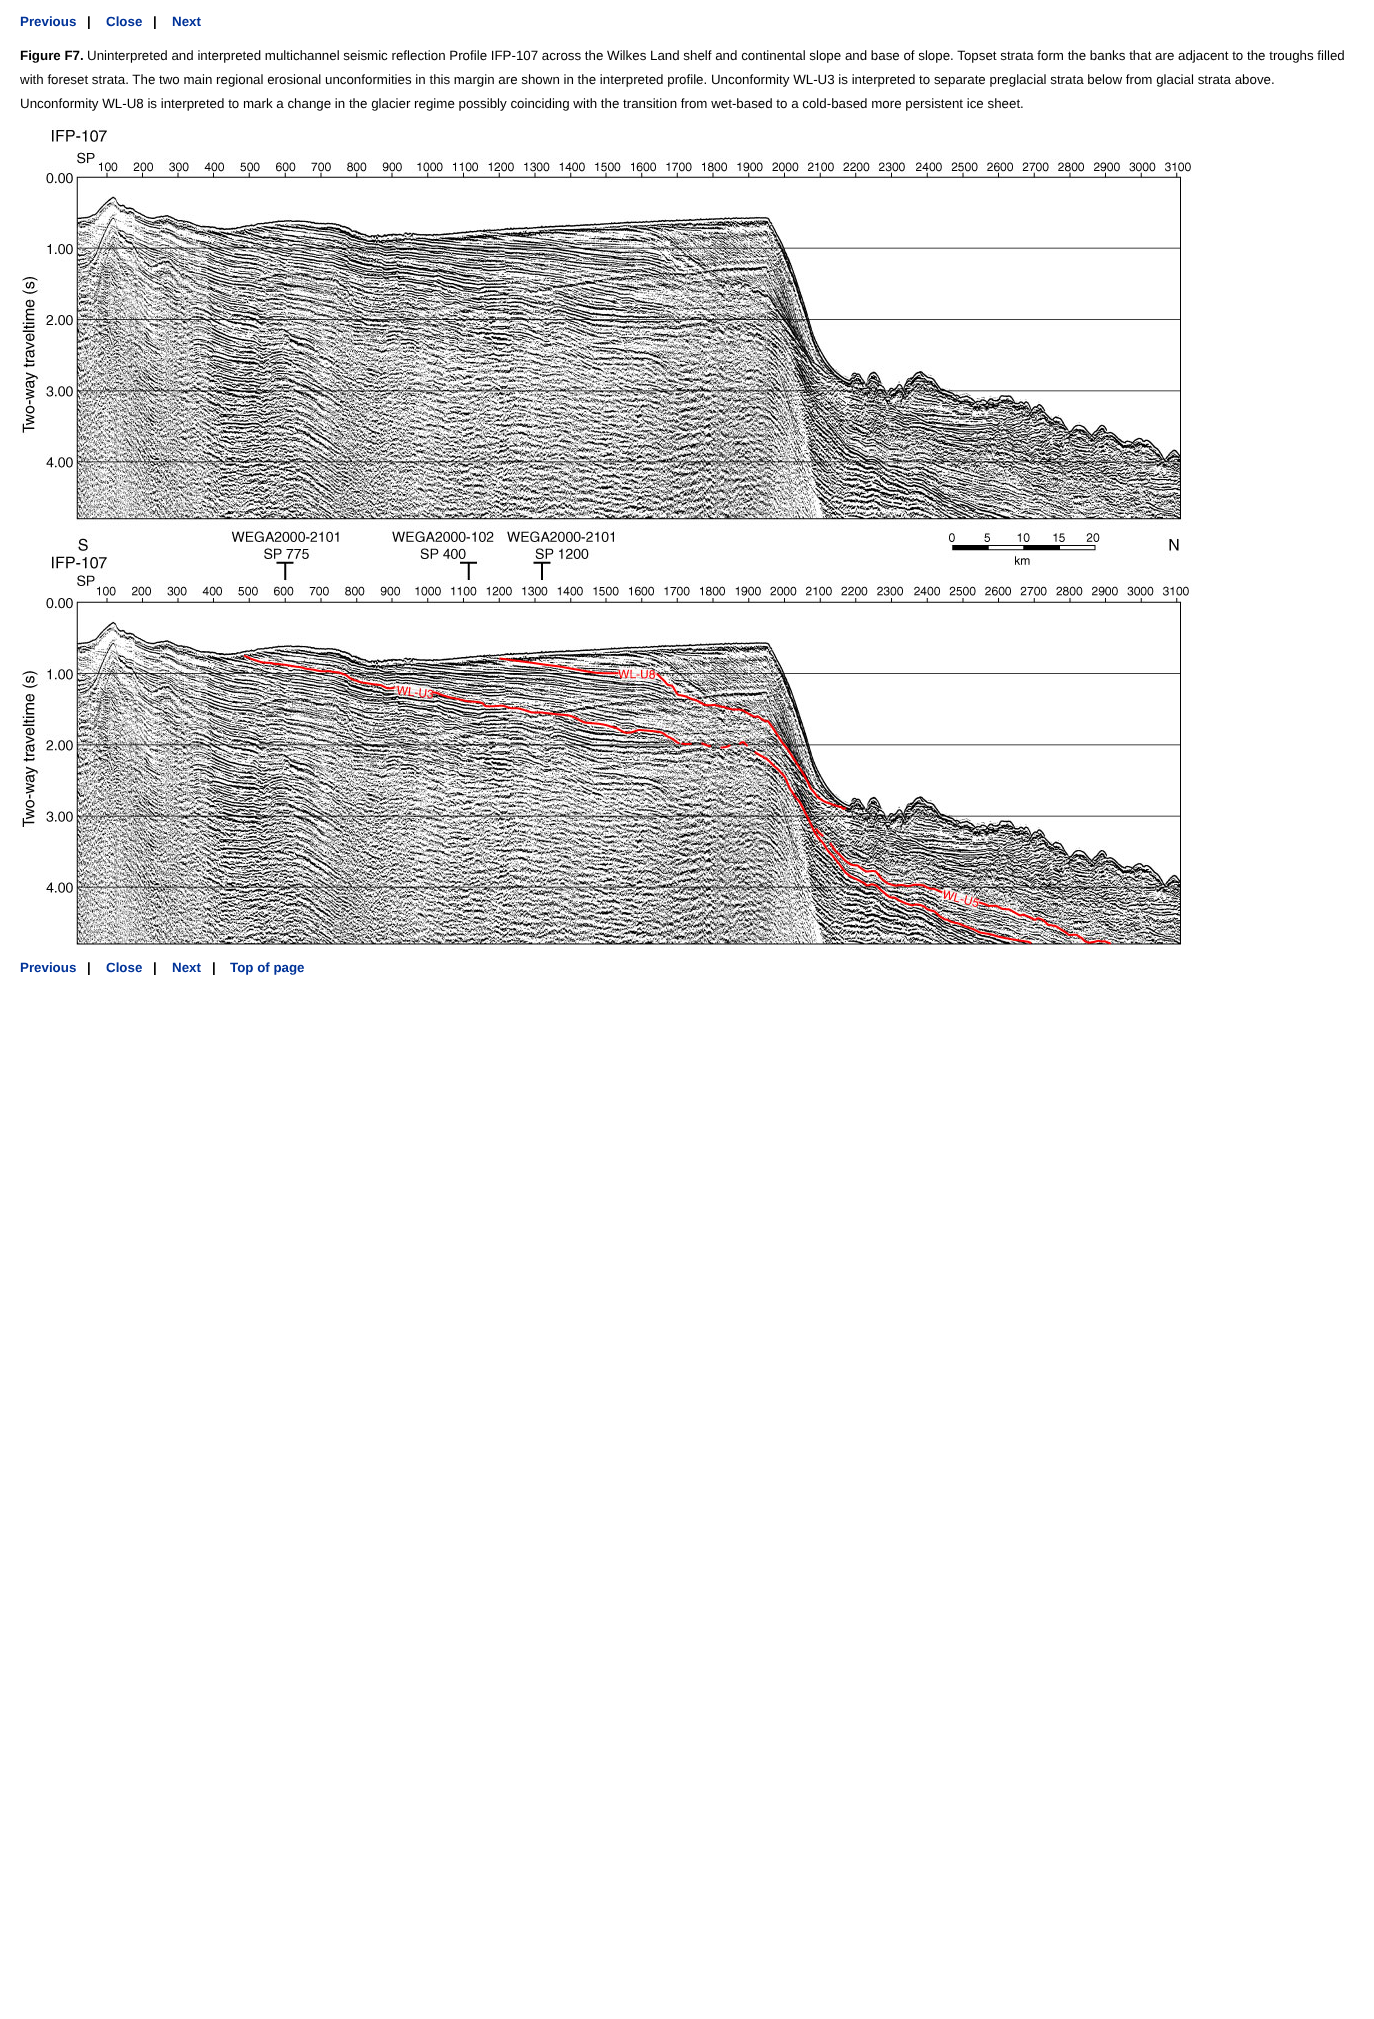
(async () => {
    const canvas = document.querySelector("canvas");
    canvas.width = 1374;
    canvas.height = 2019;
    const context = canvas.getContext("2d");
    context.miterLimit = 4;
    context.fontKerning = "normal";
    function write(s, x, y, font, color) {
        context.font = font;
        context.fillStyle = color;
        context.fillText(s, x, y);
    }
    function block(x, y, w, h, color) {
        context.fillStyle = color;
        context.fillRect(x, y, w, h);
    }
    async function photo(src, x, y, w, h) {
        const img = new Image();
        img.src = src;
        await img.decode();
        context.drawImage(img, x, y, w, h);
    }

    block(0, 0, 1374, 2019, "rgb(255, 255, 255)");
    write("Previous", 20, 26, "bold 13.33px Liberation Sans", "rgb(0, 51, 153)");
    write("|", 87, 26, "bold 13.33px Liberation Sans", "rgb(0, 0, 0)");
    write("Close", 106, 26, "bold 13.33px Liberation Sans", "rgb(0, 51, 153)");
    write("|", 153, 26, "bold 13.33px Liberation Sans", "rgb(0, 0, 0)");
    write("Next", 172, 26, "bold 13.33px Liberation Sans", "rgb(0, 51, 153)");
    write("Figure F7.", 20, 60, "bold 13.33px Liberation Sans", "rgb(0, 0, 0)");
    write("Uninterpreted and interpreted multichannel seismic reflection Profile IFP-107 across the Wilkes Land shelf and continental slope and base of slope. Topset strata form the banks that are adjacent to the troughs filled", 87, 60, "13.33px Liberation Sans", "rgb(0, 0, 0)");
    write("with foreset strata. The two main regional erosional unconformities in this margin are shown in the interpreted profile. Unconformity WL-U3 is interpreted to separate preglacial strata below from glacial strata above.", 20, 84, "13.33px Liberation Sans", "rgb(0, 0, 0)");
    write("Unconformity WL-U8 is interpreted to mark a change in the glacier regime possibly coinciding with the transition from wet-based to a cold-based more persistent ice sheet.", 20, 108, "13.33px Liberation Sans", "rgb(0, 0, 0)");
    await photo("media/1.png", 20, 126, 1172, 820);
    write("Previous", 20, 972, "bold 13.33px Liberation Sans", "rgb(0, 51, 153)");
    write("|", 87, 972, "bold 13.33px Liberation Sans", "rgb(0, 0, 0)");
    write("Close", 106, 972, "bold 13.33px Liberation Sans", "rgb(0, 51, 153)");
    write("|", 153, 972, "bold 13.33px Liberation Sans", "rgb(0, 0, 0)");
    write("Next", 172, 972, "bold 13.33px Liberation Sans", "rgb(0, 51, 153)");
    write("|", 212, 972, "bold 13.33px Liberation Sans", "rgb(0, 0, 0)");
    write("Top of page", 230, 972, "bold 13.33px Liberation Sans", "rgb(0, 51, 153)");
})();
